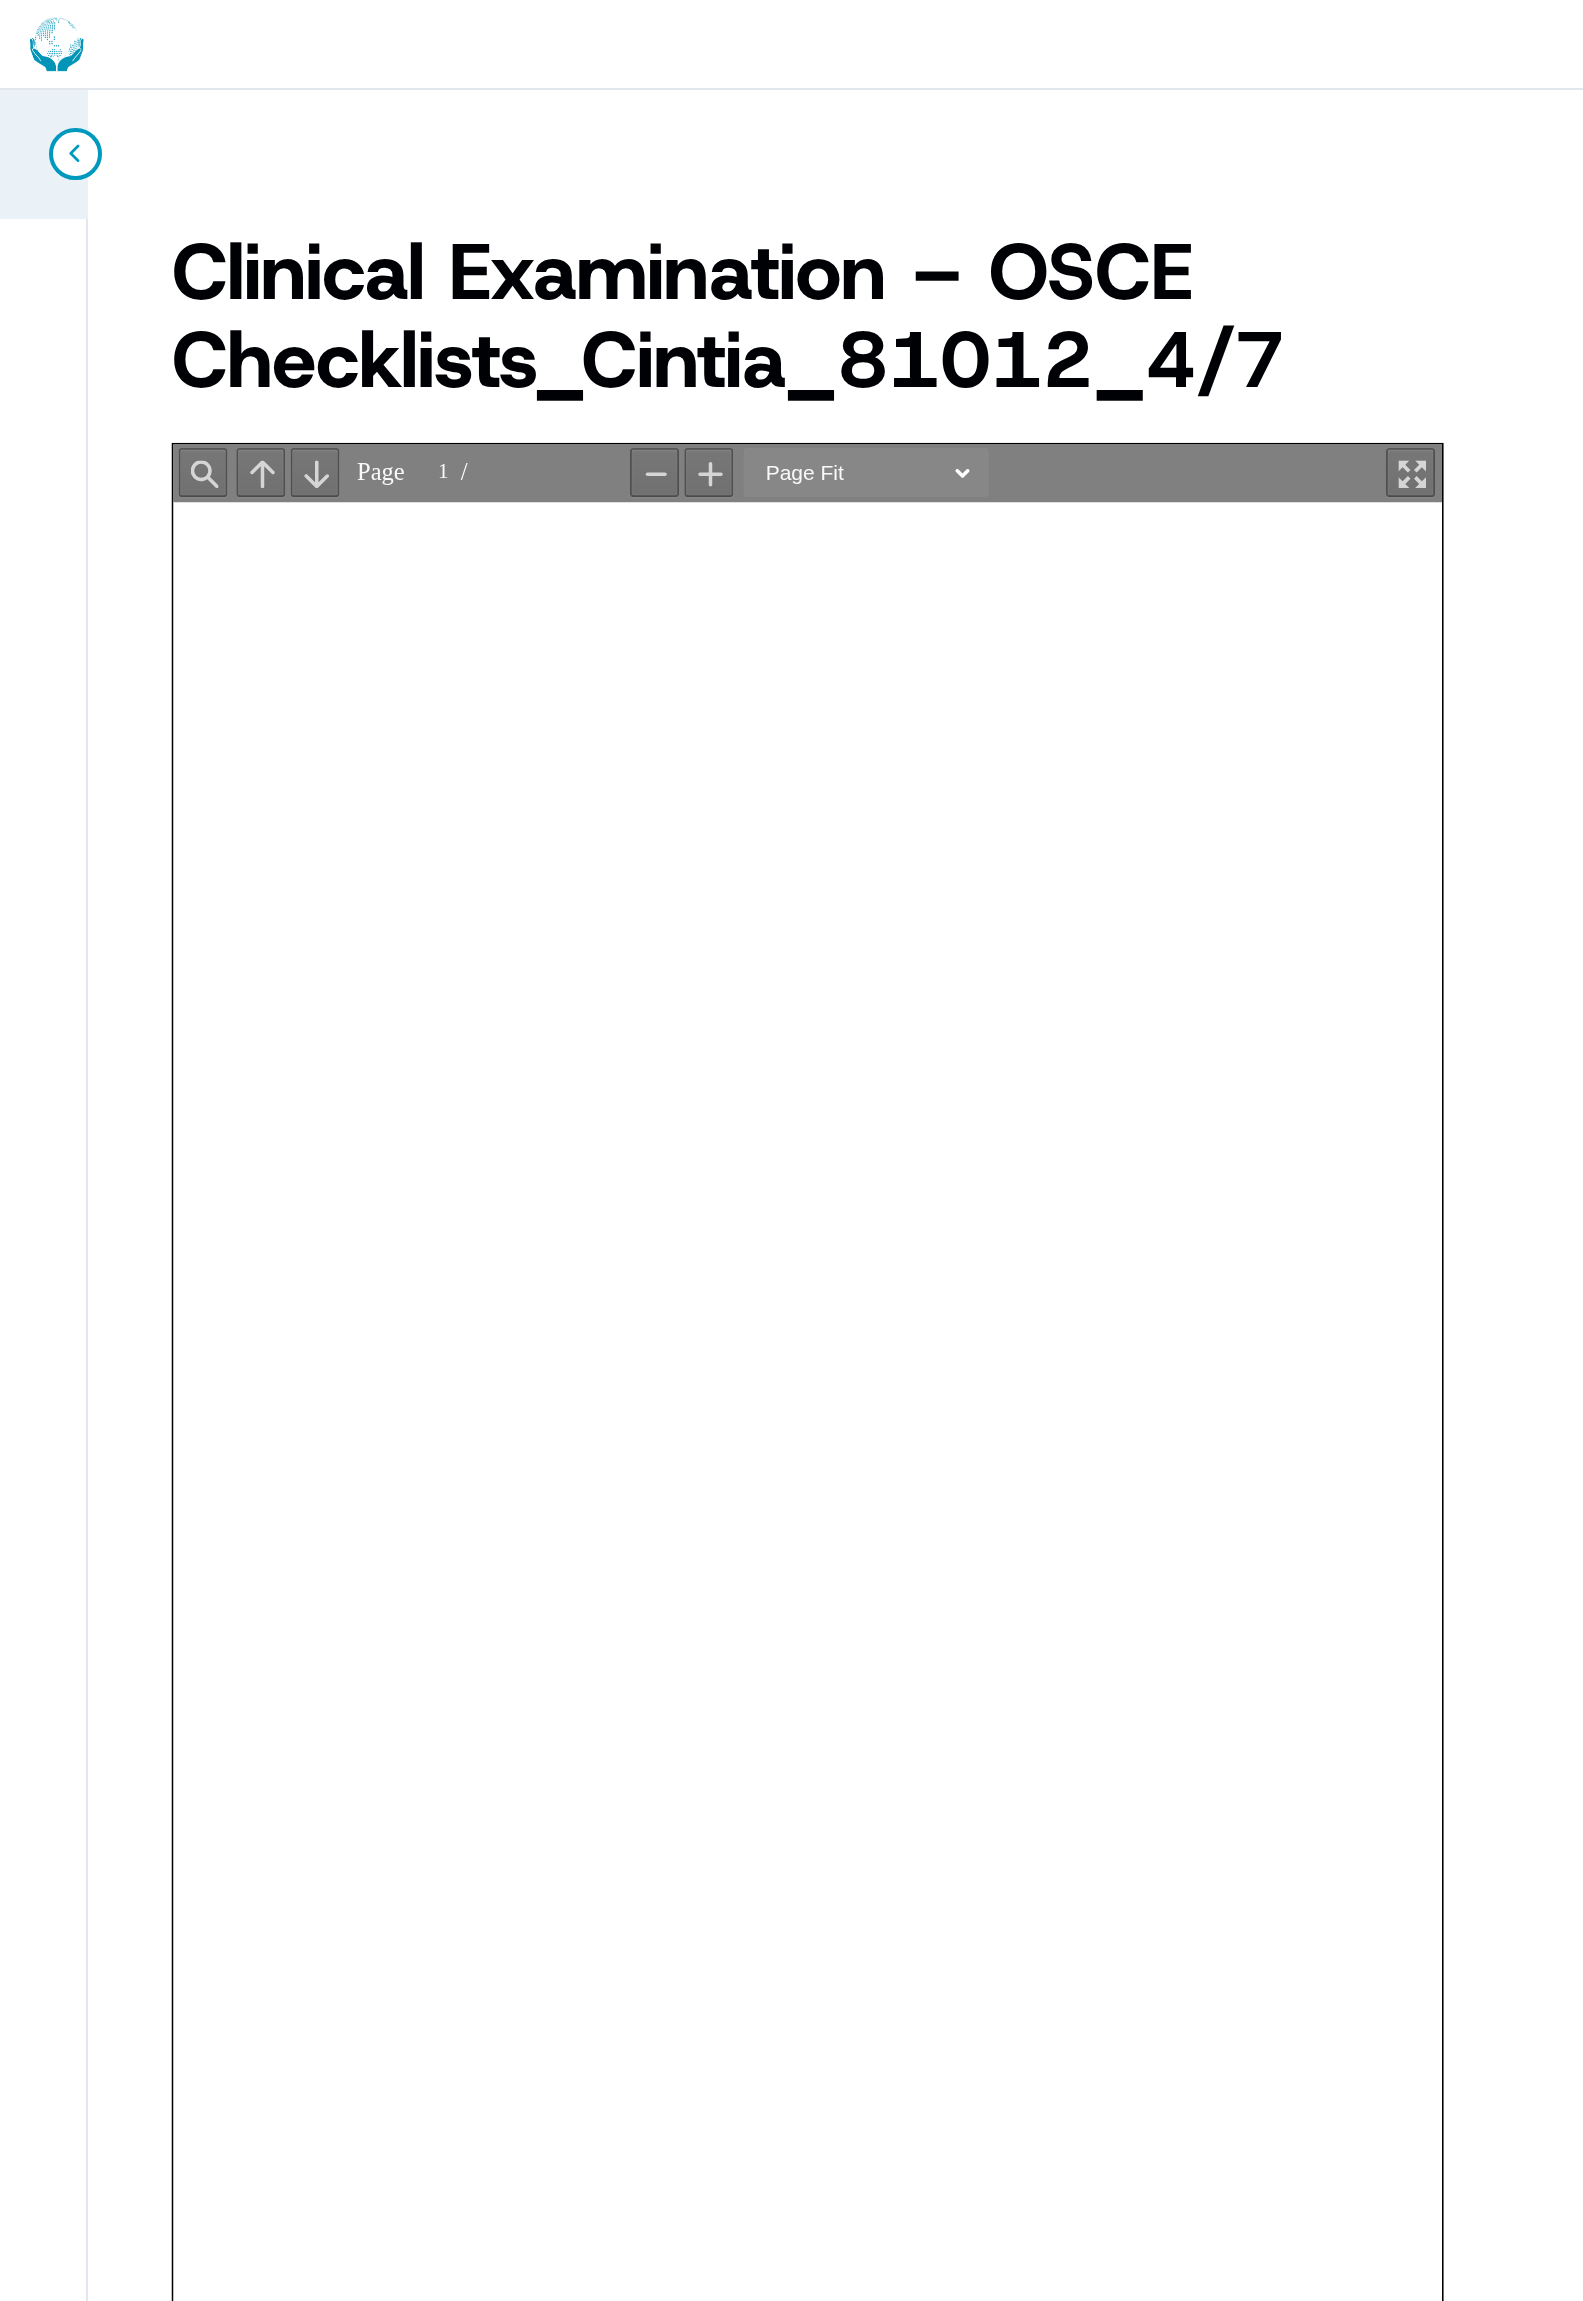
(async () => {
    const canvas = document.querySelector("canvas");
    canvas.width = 1583;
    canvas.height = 2301;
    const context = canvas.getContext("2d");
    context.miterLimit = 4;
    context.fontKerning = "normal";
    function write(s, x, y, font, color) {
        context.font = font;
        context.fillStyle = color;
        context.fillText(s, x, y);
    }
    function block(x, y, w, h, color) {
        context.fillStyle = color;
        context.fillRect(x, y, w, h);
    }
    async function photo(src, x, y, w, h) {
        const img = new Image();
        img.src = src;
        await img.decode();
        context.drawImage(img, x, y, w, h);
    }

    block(0, 0, 1583, 2301, "rgb(255, 255, 255)");
    block(86, 219, 2, 2082, "rgb(226, 231, 237)");
    block(0, 90, 88, 129, "rgb(235, 242, 247)");
    context.fillStyle = "rgb(255, 255, 255)";
    context.beginPath();
    context.roundRect(51, 130, 49, 48, 24);
    context.fill();
    context.strokeStyle = "rgb(0, 153, 190)";
    context.lineWidth = 4;
    context.stroke();
    await photo("media/1.png", 69, 144, 11, 18);
    block(0, 88, 1583, 2, "rgb(226, 231, 237)");
    await photo("media/2.png", 30, 17, 54, 55);
    write("Clinical Examination – OSCE", 172, 299, "800 78.75px Host Grotesk", "rgb(0, 1, 5)");
    write("Checklists_Cintia_81012_4/7", 172, 387, "800 78.75px Host Grotesk", "rgb(0, 1, 5)");
    await photo("media/3.png", 171, 442, 1273, 1859);
})();
